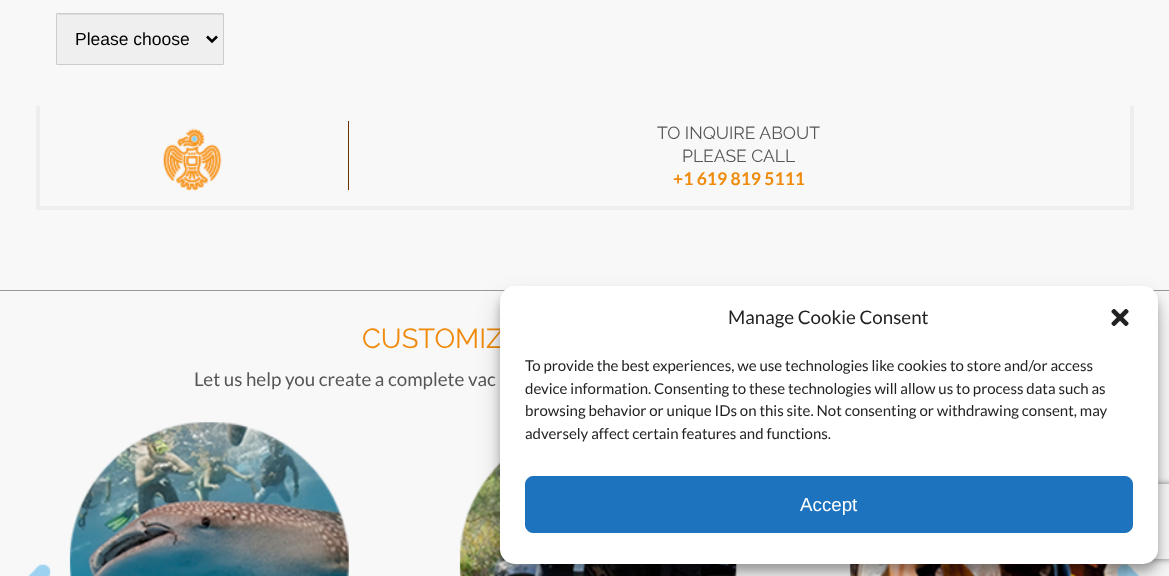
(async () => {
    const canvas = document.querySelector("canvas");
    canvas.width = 1169;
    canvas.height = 576;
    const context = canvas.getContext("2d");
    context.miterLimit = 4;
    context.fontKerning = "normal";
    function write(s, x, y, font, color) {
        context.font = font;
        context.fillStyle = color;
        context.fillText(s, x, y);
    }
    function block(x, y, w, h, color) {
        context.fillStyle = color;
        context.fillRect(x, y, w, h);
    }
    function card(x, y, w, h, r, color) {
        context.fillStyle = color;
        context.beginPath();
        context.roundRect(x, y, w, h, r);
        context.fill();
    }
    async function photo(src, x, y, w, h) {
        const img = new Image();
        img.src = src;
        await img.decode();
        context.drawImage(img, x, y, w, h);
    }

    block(0, 0, 1169, 576, "rgb(248, 248, 248)");
    card(56, 13, 168, 52, 1, "rgb(239, 239, 239)");
    block(58, 14, 165, 1, "rgb(221, 221, 221)");
    context.beginPath();
    context.roundRect(56.5, 13.5, 167, 51, 0.5);
    context.strokeStyle = "rgb(204, 204, 204)";
    context.stroke();
    context.beginPath();
    context.moveTo(207, 36.5);
    context.lineTo(212, 41.5);
    context.lineTo(217, 36.5);
    context.strokeStyle = "rgb(0, 0, 0)";
    context.lineWidth = 2.5;
    context.stroke();
    write("Please choose", 75, 45, "17.5px Liberation Sans", "rgb(0, 0, 0)");
    block(1130, 106, 4, 104, "rgb(238, 238, 238)");
    block(36, 206, 1098, 4, "rgb(238, 238, 238)");
    block(36, 106, 4, 104, "rgb(238, 238, 238)");
    await photo("media/1.png", 163, 128, 59, 62);
    block(348, 121, 1, 69, "rgb(102, 51, 0)");
    write("TO INQUIRE ABOUT", 657, 139, "17.5px Raleway", "rgb(86, 86, 86)");
    write("PLEASE CALL", 682, 162, "17.5px Raleway", "rgb(86, 86, 86)");
    write("+1 619 819 5111", 673, 185, "bold 17.5px Lato", "rgb(239, 138, 11)");
    block(0, 290, 1169, 1, "rgb(153, 153, 153)");
    write("CUSTOMIZ", 362, 348, "27.5px Raleway", "rgb(239, 138, 11)");
    write("Let us help you create a complete vac", 194, 386, "18.75px Lato", "rgb(86, 86, 86)");
    await photo("media/2.png", 28, 564, 23, 12);
    await photo("media/3.png", 69, 422, 280, 154);
    await photo("media/4.png", 459, 462, 278, 114);
    await photo("media/5.png", 849, 564, 279, 12);
    context.save();
    context.beginPath();
    context.moveTo(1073, 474);
    context.lineTo(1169, 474);
    context.lineTo(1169, 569);
    context.lineTo(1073, 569);
    context.closePath();
    context.moveTo(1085.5, 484);
    context.lineTo(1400.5, 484);
    context.bezierCurveTo(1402, 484, 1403, 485, 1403, 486.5);
    context.lineTo(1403, 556.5);
    context.bezierCurveTo(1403, 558, 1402, 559, 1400.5, 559);
    context.lineTo(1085.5, 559);
    context.bezierCurveTo(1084, 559, 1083, 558, 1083, 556.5);
    context.lineTo(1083, 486.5);
    context.bezierCurveTo(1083, 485, 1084, 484, 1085.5, 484);
    context.closePath();
    context.clip("evenodd");
    context.fillStyle = "rgb(128, 128, 128)";
    context.filter = "blur(3px)";
    context.beginPath();
    context.roundRect(1083, 484, 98, 75, 2.5);
    context.fill();
    context.filter = "none";
    context.restore();
    await photo("media/6.png", 1117, 564, 22, 12);
    context.fillStyle = "rgba(0, 0, 0, 0.23)";
    context.filter = "blur(4px)";
    context.beginPath();
    context.roundRect(500, 294, 658, 277, 15);
    context.fill();
    context.filter = "none";
    context.fillStyle = "rgba(0, 0, 0, 0.19)";
    context.filter = "blur(12.5px)";
    context.beginPath();
    context.roundRect(500, 299, 658, 277, 15);
    context.fill();
    context.filter = "none";
    card(500, 286, 658, 278, 15, "rgb(255, 255, 255)");
    write("Manage Cookie Consent", 728, 324, "18.75px Lato", "rgb(34, 34, 34)");
    await photo("media/7.png", 1111, 308, 18, 18);
    write("To provide the best experiences, we use technologies like cookies to store and/or access", 525, 371, "15px Lato", "rgb(34, 34, 34)");
    write("device information. Consenting to these technologies will allow us to process data such as", 525, 394, "15px Lato", "rgb(34, 34, 34)");
    write("browsing behavior or unique IDs on this site. Not consenting or withdrawing consent, may", 525, 416, "15px Lato", "rgb(34, 34, 34)");
    write("adversely affect certain features and functions.", 525, 439, "15px Lato", "rgb(34, 34, 34)");
    context.fillStyle = "rgb(30, 115, 190)";
    context.beginPath();
    context.roundRect(525.5, 476.5, 607, 56, 7.5);
    context.fill();
    context.strokeStyle = "rgb(30, 115, 190)";
    context.lineWidth = 1;
    context.stroke();
    write("Accept", 800, 511, "18.75px Liberation Sans", "rgb(255, 255, 255)");
})();
